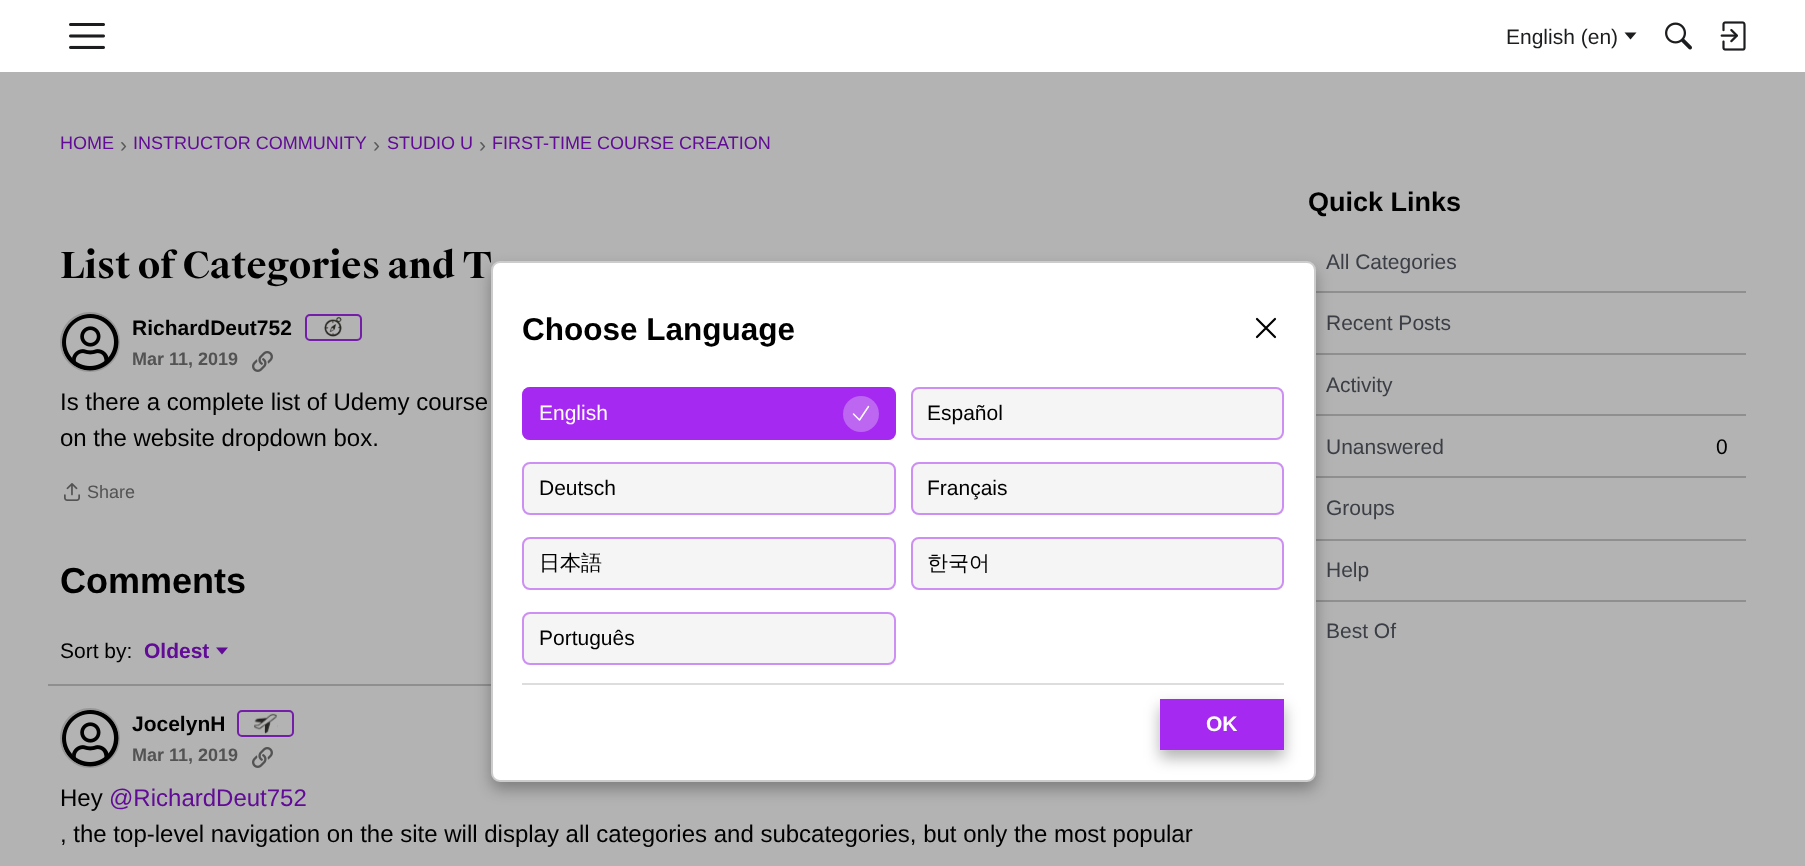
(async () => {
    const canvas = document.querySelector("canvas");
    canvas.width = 1805;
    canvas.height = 866;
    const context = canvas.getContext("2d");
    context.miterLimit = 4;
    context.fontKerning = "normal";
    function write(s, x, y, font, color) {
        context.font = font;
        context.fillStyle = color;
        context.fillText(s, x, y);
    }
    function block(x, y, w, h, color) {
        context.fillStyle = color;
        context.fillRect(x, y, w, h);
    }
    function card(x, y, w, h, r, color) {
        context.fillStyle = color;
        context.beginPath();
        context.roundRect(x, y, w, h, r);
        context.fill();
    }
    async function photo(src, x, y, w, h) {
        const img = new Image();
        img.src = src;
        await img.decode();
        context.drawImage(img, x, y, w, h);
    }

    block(0, 0, 1805, 866, "rgb(179, 179, 179)");
    block(0, 0, 1805, 72, "rgb(255, 255, 255)");
    await photo("media/1.png", 69, 23, 36, 26);
    write("English (en)", 1506, 44, "21px Liberation Sans", "rgb(28, 29, 31)");
    context.beginPath();
    context.moveTo(1624.5, 32.5);
    context.lineTo(1636.5, 32.5);
    context.lineTo(1630.5, 39.5);
    context.closePath();
    context.fill();
    await photo("media/2.png", 1665, 22, 27, 28);
    await photo("media/3.png", 1720, 21, 26, 30);
    write("HOME", 60, 149, "18px Liberation Sans", "rgb(97, 11, 150)");
    write("›", 120, 152, "21px Liberation Sans", "rgb(90, 90, 90)");
    write("INSTRUCTOR COMMUNITY", 133, 149, "18px Liberation Sans", "rgb(97, 11, 150)");
    write("›", 373, 152, "21px Liberation Sans", "rgb(90, 90, 90)");
    write("STUDIO U", 387, 149, "18px Liberation Sans", "rgb(97, 11, 150)");
    write("›", 479, 152, "21px Liberation Sans", "rgb(90, 90, 90)");
    write("FIRST-TIME COURSE CREATION", 492, 149, "18px Liberation Sans", "rgb(97, 11, 150)");
    write("List of Categories and T", 60, 278, "bold 36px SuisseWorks", "rgb(0, 0, 0)");
    context.beginPath();
    context.arc(90, 342, 29, 0, Math.PI * 2);
    context.strokeStyle = "rgb(152, 152, 152)";
    context.lineWidth = 2;
    context.stroke();
    await photo("media/4.png", 62, 314, 57, 57);
    write("RichardDeut752", 132, 335, "bold 21px Liberation Sans", "rgb(0, 0, 0)");
    context.beginPath();
    context.roundRect(306, 315, 55, 25, 4);
    context.strokeStyle = "rgb(115, 29, 168)";
    context.stroke();
    await photo("media/5.png", 324, 316, 18, 21);
    write("Mar 11, 2019", 132, 365, "bold 18px Liberation Sans", "rgb(83, 83, 83)");
    await photo("media/6.png", 252, 351, 21, 21);
    write("Is there a complete list of Udemy course", 60, 410, "24px Liberation Sans", "rgb(0, 0, 0)");
    write("on the website dropdown box.", 60, 446, "24px Liberation Sans", "rgb(0, 0, 0)");
    await photo("media/7.png", 64, 483, 16, 18);
    write("Share", 87, 498, "18px Liberation Sans", "rgb(83, 83, 83)");
    write("Comments", 60, 593, "bold 36px Liberation Sans", "rgb(0, 0, 0)");
    write("Sort by:", 60, 658, "21px Liberation Sans", "rgb(0, 0, 0)");
    write("Oldest", 144, 658, "bold 21px Liberation Sans", "rgb(97, 11, 150)");
    context.beginPath();
    context.moveTo(216, 647.5);
    context.lineTo(228, 647.5);
    context.lineTo(222, 654.5);
    context.closePath();
    context.fill();
    block(48, 684, 443, 2, "rgb(143, 143, 143)");
    context.beginPath();
    context.arc(90, 738, 29, 0, Math.PI * 2);
    context.strokeStyle = "rgb(152, 152, 152)";
    context.stroke();
    await photo("media/4.png", 62, 710, 57, 57);
    write("JocelynH", 132, 731, "bold 21px Liberation Sans", "rgb(0, 0, 0)");
    context.beginPath();
    context.roundRect(238, 711, 55, 25, 4);
    context.strokeStyle = "rgb(115, 29, 168)";
    context.stroke();
    await photo("media/8.png", 254, 713, 24, 21);
    write("Mar 11, 2019", 132, 761, "bold 18px Liberation Sans", "rgb(83, 83, 83)");
    await photo("media/6.png", 252, 747, 21, 21);
    write("Hey", 60, 806, "24px Liberation Sans", "rgb(0, 0, 0)");
    write("@RichardDeut752", 109, 806, "24px Liberation Sans", "rgb(97, 11, 150)");
    write(", the top-level navigation on the site will display all categories and subcategories, but only the most popular", 60, 842, "24px Liberation Sans", "rgb(0, 0, 0)");
    write("Quick Links", 1308, 211, "bold 27px Liberation Sans", "rgb(0, 0, 0)");
    block(1308, 291, 438, 2, "rgb(143, 143, 143)");
    write("All Categories", 1326, 269, "21px Liberation Sans", "rgb(59, 63, 69)");
    block(1308, 353, 438, 2, "rgb(143, 143, 143)");
    write("Recent Posts", 1326, 330, "21px Liberation Sans", "rgb(59, 63, 69)");
    block(1308, 414, 438, 2, "rgb(143, 143, 143)");
    write("Activity", 1326, 392, "21px Liberation Sans", "rgb(59, 63, 69)");
    block(1308, 476, 438, 2, "rgb(143, 143, 143)");
    write("Unanswered", 1326, 454, "21px Liberation Sans", "rgb(59, 63, 69)");
    write("0", 1716, 454, "21px Liberation Sans", "rgb(0, 0, 0)");
    block(1308, 539, 438, 2, "rgb(143, 143, 143)");
    write("Groups", 1326, 515, "21px Liberation Sans", "rgb(59, 63, 69)");
    block(1308, 600, 438, 2, "rgb(143, 143, 143)");
    write("Help", 1326, 577, "21px Liberation Sans", "rgb(59, 63, 69)");
    write("Best Of", 1326, 638, "21px Liberation Sans", "rgb(59, 63, 69)");
    context.fillStyle = "rgba(0, 0, 0, 0.3)";
    context.filter = "blur(7.5px)";
    context.beginPath();
    context.roundRect(491, 269, 825, 520, 9);
    context.fill();
    context.filter = "none";
    context.fillStyle = "rgb(255, 255, 255)";
    context.beginPath();
    context.roundRect(492, 262, 823, 519, 8);
    context.fill();
    context.strokeStyle = "rgb(204, 204, 204)";
    context.stroke();
    write("Choose Language", 522, 340, "bold 31.5px Liberation Sans", "rgb(0, 0, 0)");
    context.beginPath();
    context.moveTo(1257, 337);
    context.lineTo(1275, 319);
    context.moveTo(1257, 319);
    context.lineTo(1275, 337);
    context.strokeStyle = "rgb(0, 0, 0)";
    context.lineWidth = 2.2;
    context.lineCap = "round";
    context.lineJoin = "round";
    context.stroke();
    card(522, 387, 374, 53, 8, "rgb(165, 41, 240)");
    context.beginPath();
    context.roundRect(523, 388, 372, 51, 7);
    context.strokeStyle = "rgba(165, 41, 240, 0.5)";
    context.lineWidth = 2;
    context.lineJoin = "miter";
    context.stroke();
    write("English", 539, 420, "21px Liberation Sans", "rgb(255, 255, 255)");
    context.fillStyle = "rgb(188, 102, 241)";
    context.beginPath();
    context.arc(861, 414, 18, 0, Math.PI * 2);
    context.fill();
    context.beginPath();
    context.moveTo(853.5, 414);
    context.lineTo(859.5, 420);
    context.lineTo(868.5, 406.5);
    context.strokeStyle = "rgb(255, 255, 255)";
    context.lineWidth = 1.5;
    context.lineJoin = "round";
    context.stroke();
    card(911, 387, 373, 53, 8, "rgb(245, 245, 246)");
    context.beginPath();
    context.roundRect(912, 388, 371, 51, 7);
    context.strokeStyle = "rgba(165, 41, 240, 0.5)";
    context.lineWidth = 2;
    context.lineJoin = "miter";
    context.stroke();
    write("Español", 927, 420, "21px Liberation Sans", "rgb(0, 0, 0)");
    card(522, 462, 374, 53, 8, "rgb(245, 245, 246)");
    context.beginPath();
    context.roundRect(523, 463, 372, 51, 7);
    context.stroke();
    write("Deutsch", 539, 495, "21px Liberation Sans", "rgb(0, 0, 0)");
    card(911, 462, 373, 53, 8, "rgb(245, 245, 246)");
    context.beginPath();
    context.roundRect(912, 463, 371, 51, 7);
    context.stroke();
    write("Français", 927, 495, "21px Liberation Sans", "rgb(0, 0, 0)");
    card(522, 537, 374, 53, 8, "rgb(245, 245, 246)");
    context.beginPath();
    context.roundRect(523, 538, 372, 51, 7);
    context.stroke();
    write("日本語", 539, 570, "500 21px WenQuanYi Zen Hei", "rgb(0, 0, 0)");
    card(911, 537, 373, 53, 8, "rgb(245, 245, 246)");
    context.beginPath();
    context.roundRect(912, 538, 371, 51, 7);
    context.stroke();
    write("한국어", 927, 570, "500 21px WenQuanYi Zen Hei", "rgb(0, 0, 0)");
    card(522, 612, 374, 53, 8, "rgb(245, 245, 246)");
    context.beginPath();
    context.roundRect(523, 613, 372, 51, 7);
    context.stroke();
    write("Português", 539, 645, "21px Liberation Sans", "rgb(0, 0, 0)");
    block(522, 683, 762, 2, "rgb(221, 221, 221)");
    context.fillStyle = "rgba(0, 0, 0, 0.3)";
    context.filter = "blur(7.5px)";
    context.beginPath();
    context.rect(1160, 707, 124, 51);
    context.fill();
    context.filter = "none";
    block(1160, 699, 124, 51, "rgb(165, 41, 240)");
    write("OK", 1206, 731, "bold 21px Liberation Sans", "rgb(255, 255, 255)");
})();
